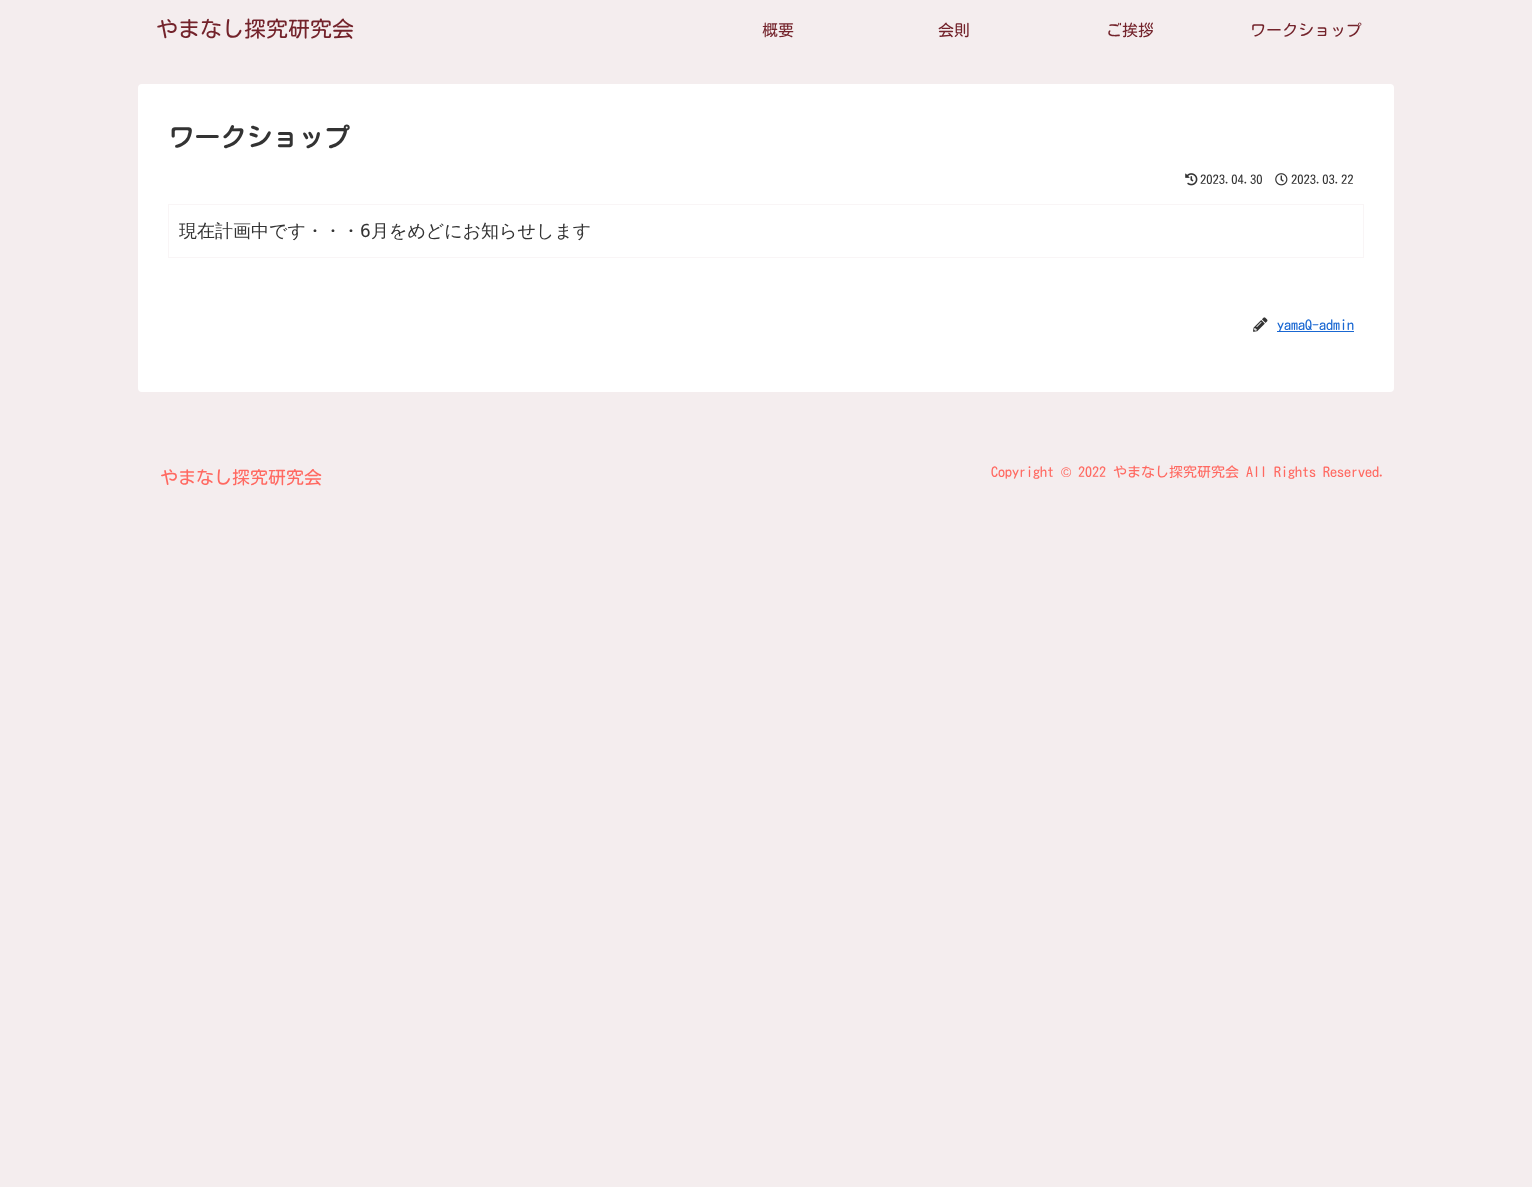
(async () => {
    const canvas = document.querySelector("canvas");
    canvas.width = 1532;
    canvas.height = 1187;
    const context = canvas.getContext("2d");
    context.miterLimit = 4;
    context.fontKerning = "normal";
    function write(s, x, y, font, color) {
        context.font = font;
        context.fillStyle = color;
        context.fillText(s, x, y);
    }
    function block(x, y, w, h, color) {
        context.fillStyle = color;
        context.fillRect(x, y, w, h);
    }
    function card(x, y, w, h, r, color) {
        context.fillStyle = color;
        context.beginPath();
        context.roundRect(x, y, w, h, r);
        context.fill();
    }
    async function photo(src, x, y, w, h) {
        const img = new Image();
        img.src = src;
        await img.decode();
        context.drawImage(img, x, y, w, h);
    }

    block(0, 0, 1532, 1187, "rgb(244, 237, 238)");
    write("やまなし探究研究会", 156, 37, "22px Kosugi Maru", "rgb(115, 35, 43)");
    write("概要", 762, 36, "16px Kosugi Maru", "rgb(115, 35, 43)");
    write("会則", 938, 36, "16px Kosugi Maru", "rgb(115, 35, 43)");
    write("ご挨拶", 1106, 36, "16px Kosugi Maru", "rgb(115, 35, 43)");
    write("ワークショップ", 1250, 36, "16px Kosugi Maru", "rgb(115, 35, 43)");
    card(138, 84, 1256, 308, 4, "rgb(255, 255, 255)");
    write("ワークショップ", 168, 147, "bold 26px Kosugi Maru", "rgb(51, 51, 51)");
    await photo("media/1.png", 1185, 173, 13, 13);
    write("2023.04.30", 1200, 184, "12.5px Kosugi Maru", "rgb(51, 51, 51)");
    await photo("media/2.png", 1275, 173, 13, 13);
    write("2023.03.22", 1291, 184, "12.5px Kosugi Maru", "rgb(51, 51, 51)");
    context.strokeStyle = "rgb(249, 245, 246)";
    context.strokeRect(168.5, 204.5, 1195, 53);
    write("現在計画中です・・・", 179, 237, "500 18px WenQuanYi Zen Hei", "rgb(51, 51, 51)");
    write("6", 360, 237, "18px DejaVu Sans Mono", "rgb(51, 51, 51)");
    write("月をめどにお知らせします", 371, 237, "500 18px WenQuanYi Zen Hei", "rgb(51, 51, 51)");
    await photo("media/3.png", 1253, 317, 15, 15);
    block(1277, 331, 77, 1, "rgb(25, 103, 210)");
    write("yamaQ-admin", 1277, 330, "14px Kosugi Maru", "rgb(25, 103, 210)");
    write("やまなし探究研究会", 160, 484, "18px Kosugi Maru", "rgb(255, 105, 97)");
    write("Copyright", 991, 477, "14px Kosugi Maru", "rgb(255, 105, 97)");
    write("©", 1061, 477, "14px Liberation Sans", "rgb(255, 105, 97)");
    write("2022 やまなし探究研究会 All Rights Reserved.", 1078, 477, "14px Kosugi Maru", "rgb(255, 105, 97)");
})();
